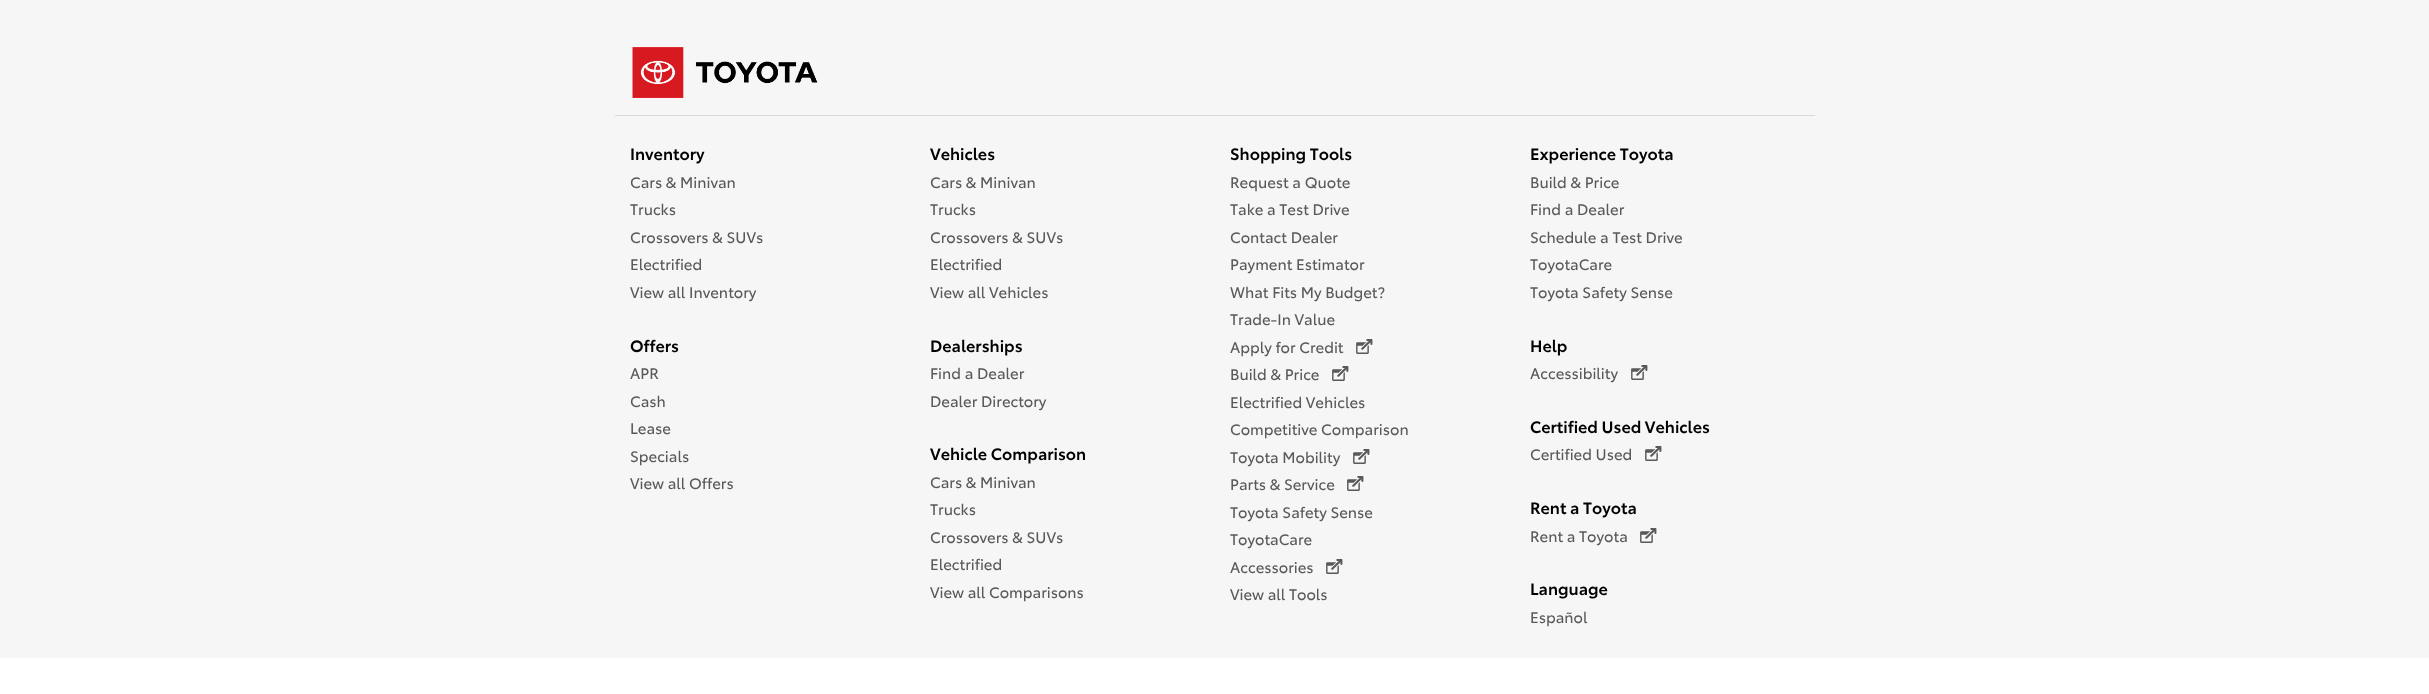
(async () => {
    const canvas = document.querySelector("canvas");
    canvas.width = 2429;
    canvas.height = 694;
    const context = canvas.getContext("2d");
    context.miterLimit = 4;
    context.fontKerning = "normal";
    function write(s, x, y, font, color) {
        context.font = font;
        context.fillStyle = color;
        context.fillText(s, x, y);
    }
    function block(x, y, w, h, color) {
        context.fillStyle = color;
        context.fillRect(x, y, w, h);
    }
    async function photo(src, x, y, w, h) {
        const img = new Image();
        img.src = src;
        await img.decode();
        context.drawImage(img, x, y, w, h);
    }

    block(0, 0, 2429, 694, "rgb(246, 246, 246)");
    block(615, 115, 1200, 1, "rgb(216, 216, 216)");
    await photo("media/1.png", 632, 47, 186, 51);
    write("Inventory", 630, 160, "600 16.25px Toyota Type", "rgb(0, 0, 0)");
    write("Cars & Minivan", 630, 188, "15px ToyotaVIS", "rgb(88, 89, 91)");
    write("Trucks", 630, 215, "15px ToyotaVIS", "rgb(88, 89, 91)");
    write("Crossovers & SUVs", 630, 243, "15px ToyotaVIS", "rgb(88, 89, 91)");
    write("Electrified", 630, 270, "15px ToyotaVIS", "rgb(88, 89, 91)");
    write("View all Inventory", 630, 298, "15px ToyotaVIS", "rgb(88, 89, 91)");
    write("Offers", 630, 352, "600 16.25px Toyota Type", "rgb(0, 0, 0)");
    write("APR", 630, 379, "15px ToyotaVIS", "rgb(88, 89, 91)");
    write("Cash", 630, 407, "15px ToyotaVIS", "rgb(88, 89, 91)");
    write("Lease", 630, 434, "15px ToyotaVIS", "rgb(88, 89, 91)");
    write("Specials", 630, 462, "15px ToyotaVIS", "rgb(88, 89, 91)");
    write("View all Offers", 630, 489, "15px ToyotaVIS", "rgb(88, 89, 91)");
    write("Vehicles", 930, 160, "600 16.25px Toyota Type", "rgb(0, 0, 0)");
    write("Cars & Minivan", 930, 188, "15px ToyotaVIS", "rgb(88, 89, 91)");
    write("Trucks", 930, 215, "15px ToyotaVIS", "rgb(88, 89, 91)");
    write("Crossovers & SUVs", 930, 243, "15px ToyotaVIS", "rgb(88, 89, 91)");
    write("Electrified", 930, 270, "15px ToyotaVIS", "rgb(88, 89, 91)");
    write("View all Vehicles", 930, 298, "15px ToyotaVIS", "rgb(88, 89, 91)");
    write("Dealerships", 930, 352, "600 16.25px Toyota Type", "rgb(0, 0, 0)");
    write("Find a Dealer", 930, 379, "15px ToyotaVIS", "rgb(88, 89, 91)");
    write("Dealer Directory", 930, 407, "15px ToyotaVIS", "rgb(88, 89, 91)");
    write("Vehicle Comparison", 930, 460, "600 16.25px Toyota Type", "rgb(0, 0, 0)");
    write("Cars & Minivan", 930, 488, "15px ToyotaVIS", "rgb(88, 89, 91)");
    write("Trucks", 930, 515, "15px ToyotaVIS", "rgb(88, 89, 91)");
    write("Crossovers & SUVs", 930, 543, "15px ToyotaVIS", "rgb(88, 89, 91)");
    write("Electrified", 930, 570, "15px ToyotaVIS", "rgb(88, 89, 91)");
    write("View all Comparisons", 930, 598, "15px ToyotaVIS", "rgb(88, 89, 91)");
    write("Shopping Tools", 1230, 160, "600 16.25px Toyota Type", "rgb(0, 0, 0)");
    write("Request a Quote", 1230, 188, "15px ToyotaVIS", "rgb(88, 89, 91)");
    write("Take a Test Drive", 1230, 215, "15px ToyotaVIS", "rgb(88, 89, 91)");
    write("Contact Dealer", 1230, 243, "15px ToyotaVIS", "rgb(88, 89, 91)");
    write("Payment Estimator", 1230, 270, "15px ToyotaVIS", "rgb(88, 89, 91)");
    write("What Fits My Budget?", 1230, 298, "15px ToyotaVIS", "rgb(88, 89, 91)");
    write("Trade-In Value", 1230, 325, "15px ToyotaVIS", "rgb(88, 89, 91)");
    write("Apply for Credit", 1230, 353, "15px ToyotaVIS", "rgb(88, 89, 91)");
    write("/", 1356, 353, "15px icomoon", "rgb(88, 89, 91)");
    write("Build & Price", 1230, 380, "15px ToyotaVIS", "rgb(88, 89, 91)");
    write("/", 1332, 380, "15px icomoon", "rgb(88, 89, 91)");
    write("Electrified Vehicles", 1230, 408, "15px ToyotaVIS", "rgb(88, 89, 91)");
    write("Competitive Comparison", 1230, 435, "15px ToyotaVIS", "rgb(88, 89, 91)");
    write("Toyota Mobility", 1230, 463, "15px ToyotaVIS", "rgb(88, 89, 91)");
    write("/", 1353, 463, "15px icomoon", "rgb(88, 89, 91)");
    write("Parts & Service", 1230, 490, "15px ToyotaVIS", "rgb(88, 89, 91)");
    write("/", 1347, 490, "15px icomoon", "rgb(88, 89, 91)");
    write("Toyota Safety Sense", 1230, 518, "15px ToyotaVIS", "rgb(88, 89, 91)");
    write("ToyotaCare", 1230, 545, "15px ToyotaVIS", "rgb(88, 89, 91)");
    write("Accessories", 1230, 573, "15px ToyotaVIS", "rgb(88, 89, 91)");
    write("/", 1326, 573, "15px icomoon", "rgb(88, 89, 91)");
    write("View all Tools", 1230, 600, "15px ToyotaVIS", "rgb(88, 89, 91)");
    write("Experience Toyota", 1530, 160, "600 16.25px Toyota Type", "rgb(0, 0, 0)");
    write("Build & Price", 1530, 188, "15px ToyotaVIS", "rgb(88, 89, 91)");
    write("Find a Dealer", 1530, 215, "15px ToyotaVIS", "rgb(88, 89, 91)");
    write("Schedule a Test Drive", 1530, 243, "15px ToyotaVIS", "rgb(88, 89, 91)");
    write("ToyotaCare", 1530, 270, "15px ToyotaVIS", "rgb(88, 89, 91)");
    write("Toyota Safety Sense", 1530, 298, "15px ToyotaVIS", "rgb(88, 89, 91)");
    write("Help", 1530, 352, "600 16.25px Toyota Type", "rgb(0, 0, 0)");
    write("Accessibility", 1530, 379, "15px ToyotaVIS", "rgb(88, 89, 91)");
    write("/", 1631, 379, "15px icomoon", "rgb(88, 89, 91)");
    write("Certified Used Vehicles", 1530, 433, "600 16.25px Toyota Type", "rgb(0, 0, 0)");
    write("Certified Used", 1530, 460, "15px ToyotaVIS", "rgb(88, 89, 91)");
    write("/", 1645, 460, "15px icomoon", "rgb(88, 89, 91)");
    write("Rent a Toyota", 1530, 514, "600 16.25px Toyota Type", "rgb(0, 0, 0)");
    write("Rent a Toyota", 1530, 542, "15px ToyotaVIS", "rgb(88, 89, 91)");
    write("/", 1640, 542, "15px icomoon", "rgb(88, 89, 91)");
    write("Language", 1530, 595, "600 16.25px Toyota Type", "rgb(0, 0, 0)");
    write("Español", 1530, 623, "15px ToyotaVIS", "rgb(88, 89, 91)");
    block(0, 658, 2429, 36, "rgb(255, 255, 255)");
})();
